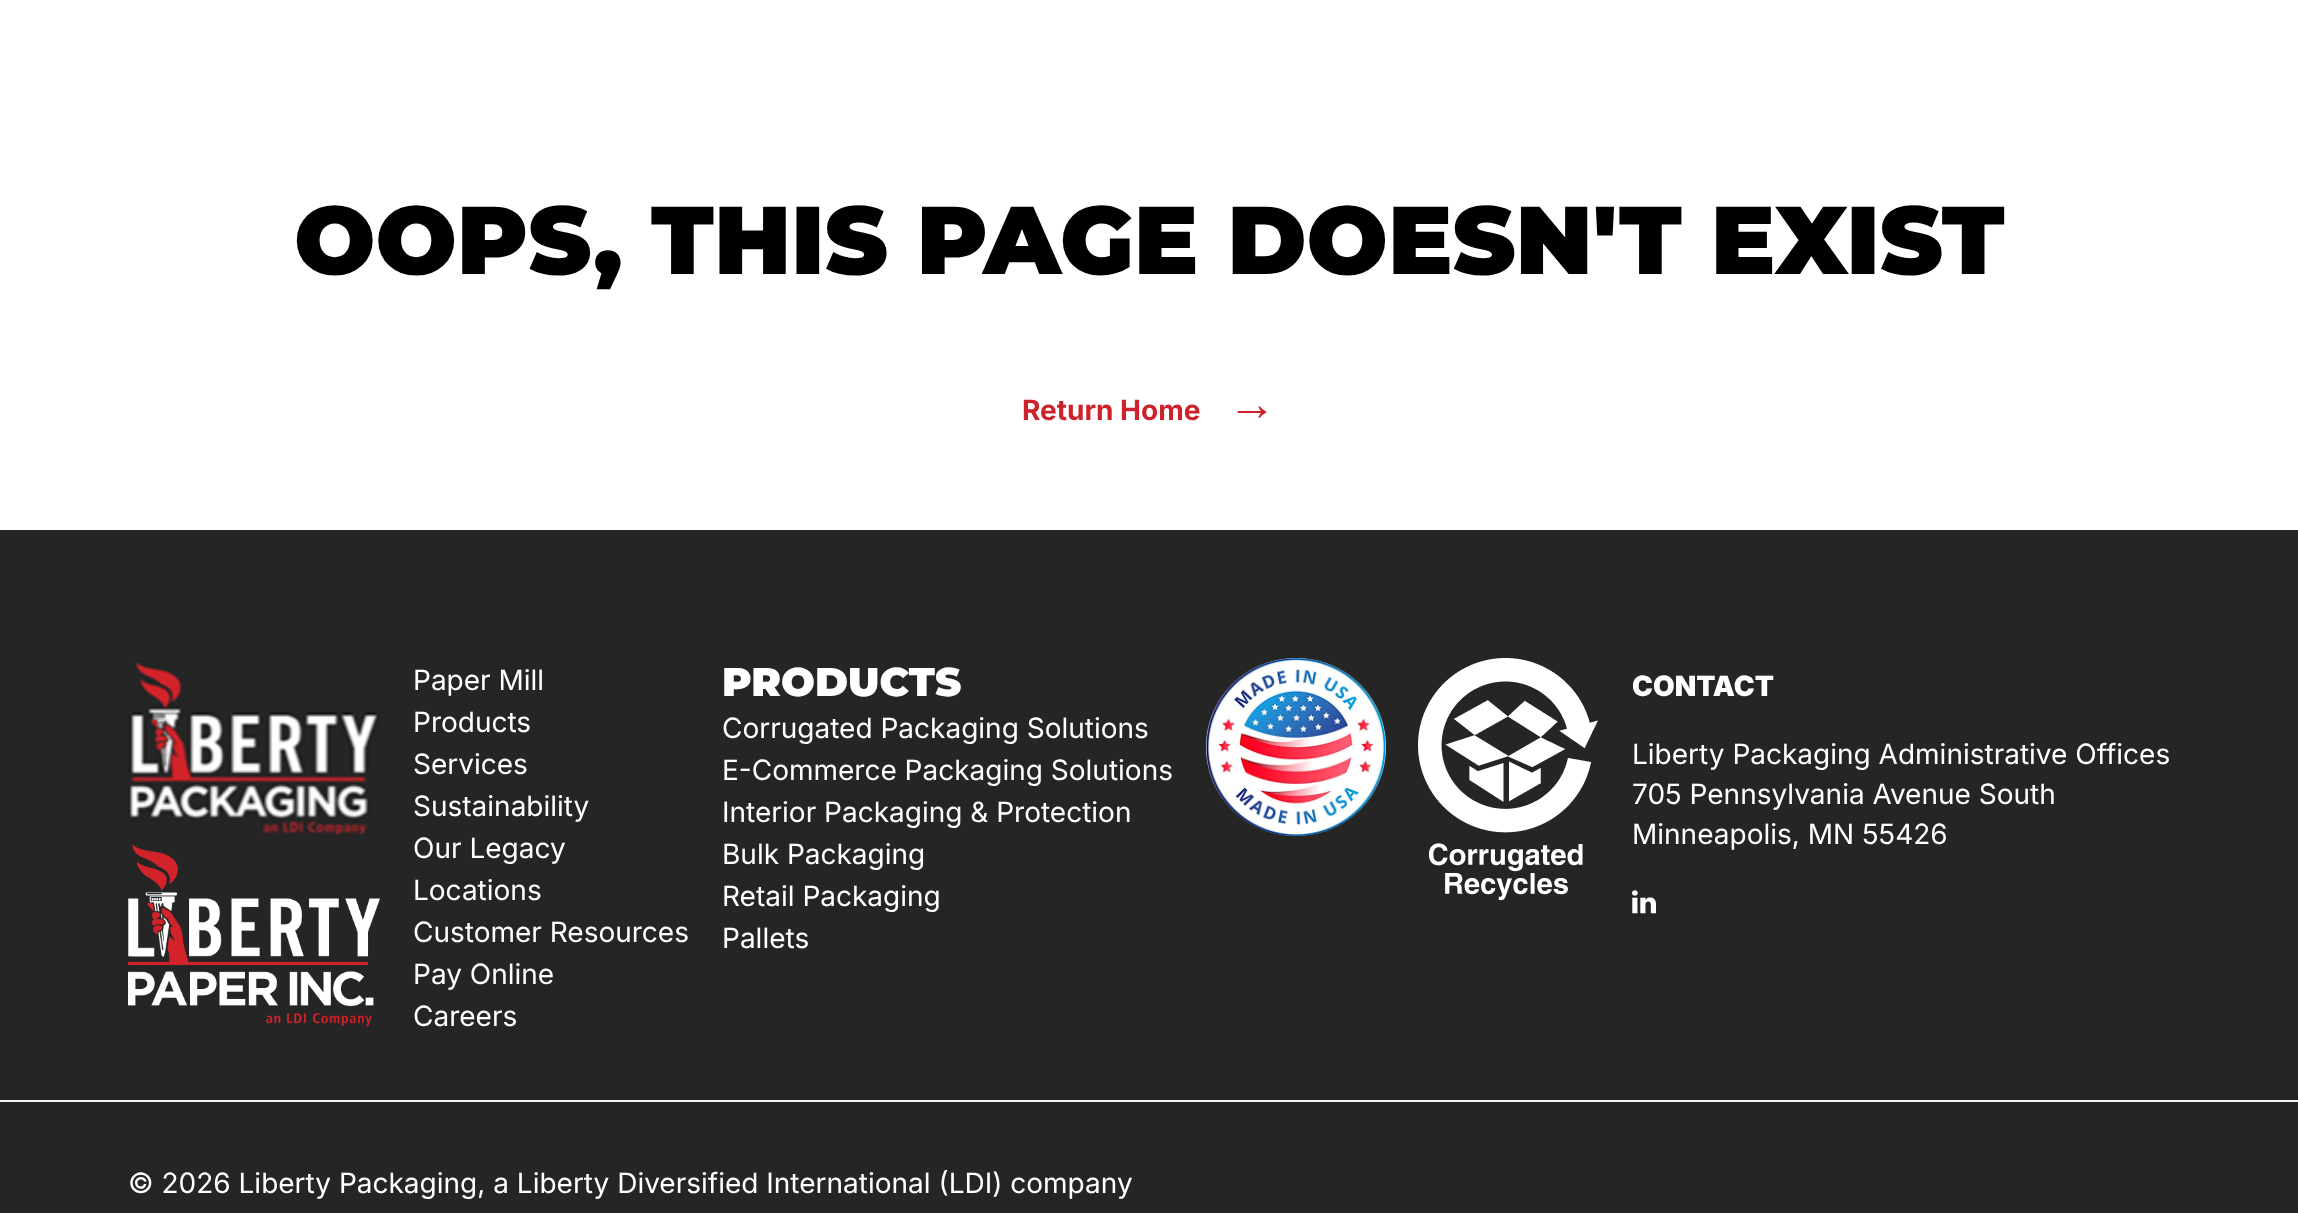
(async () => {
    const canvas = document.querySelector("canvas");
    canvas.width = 2298;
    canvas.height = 1213;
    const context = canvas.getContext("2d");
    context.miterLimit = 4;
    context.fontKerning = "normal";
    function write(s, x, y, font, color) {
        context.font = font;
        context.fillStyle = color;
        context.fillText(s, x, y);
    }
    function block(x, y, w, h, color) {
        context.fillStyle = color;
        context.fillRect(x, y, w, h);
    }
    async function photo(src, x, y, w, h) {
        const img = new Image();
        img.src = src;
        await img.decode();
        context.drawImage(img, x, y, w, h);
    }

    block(0, 0, 2298, 1213, "rgb(255, 255, 255)");
    write("OOPS, THIS PAGE DOESN'T EXIST", 294, 274, "900 96px Montserrat", "rgb(0, 0, 0)");
    write("Return Home", 1022, 420, "bold 28px Inter", "rgb(205, 34, 44)");
    write("→", 1228, 420, "bold 48px Liberation Sans", "rgb(205, 34, 44)");
    block(0, 530, 2298, 683, "rgb(37, 37, 37)");
    await photo("media/1.png", 128, 660, 252, 174);
    await photo("media/2.png", 128, 844, 252, 182);
    write("Paper Mill", 413, 690, "28px Inter", "rgb(255, 255, 255)");
    write("Products", 413, 732, "28px Inter", "rgb(255, 255, 255)");
    write("Services", 413, 774, "28px Inter", "rgb(255, 255, 255)");
    write("Sustainability", 413, 816, "28px Inter", "rgb(255, 255, 255)");
    write("Our Legacy", 413, 858, "28px Inter", "rgb(255, 255, 255)");
    write("Locations", 413, 900, "28px Inter", "rgb(255, 255, 255)");
    write("Customer Resources", 413, 942, "28px Inter", "rgb(255, 255, 255)");
    write("Pay Online", 413, 984, "28px Inter", "rgb(255, 255, 255)");
    write("Careers", 413, 1026, "28px Inter", "rgb(255, 255, 255)");
    write("PRODUCTS", 722, 696, "900 40px Montserrat", "rgb(255, 255, 255)");
    write("Corrugated Packaging Solutions", 722, 738, "28px Inter", "rgb(255, 255, 255)");
    write("E-Commerce Packaging Solutions", 722, 780, "28px Inter", "rgb(255, 255, 255)");
    write("Interior Packaging & Protection", 722, 822, "28px Inter", "rgb(255, 255, 255)");
    write("Bulk Packaging", 722, 864, "28px Inter", "rgb(255, 255, 255)");
    write("Retail Packaging", 722, 906, "28px Inter", "rgb(255, 255, 255)");
    write("Pallets", 722, 948, "28px Inter", "rgb(255, 255, 255)");
    await photo("media/3.png", 1206, 658, 180, 178);
    await photo("media/4.png", 1418, 658, 180, 242);
    write("CONTACT", 1632, 696, "900 28px Inter", "rgb(255, 255, 255)");
    write("Liberty Packaging Administrative Offices", 1632, 764, "28px Inter", "rgb(255, 255, 255)");
    write("705 Pennsylvania Avenue South", 1632, 804, "28px Inter", "rgb(255, 255, 255)");
    write("Minneapolis, MN 55426", 1632, 844, "28px Inter", "rgb(255, 255, 255)");
    await photo("media/5.png", 1632, 890, 24, 24);
    block(0, 1100, 2298, 2, "rgb(242, 242, 242)");
    write("© 2026 Liberty Packaging, a Liberty Diversified International (LDI) company", 128, 1193, "28px Inter", "rgb(255, 255, 255)");
})();
